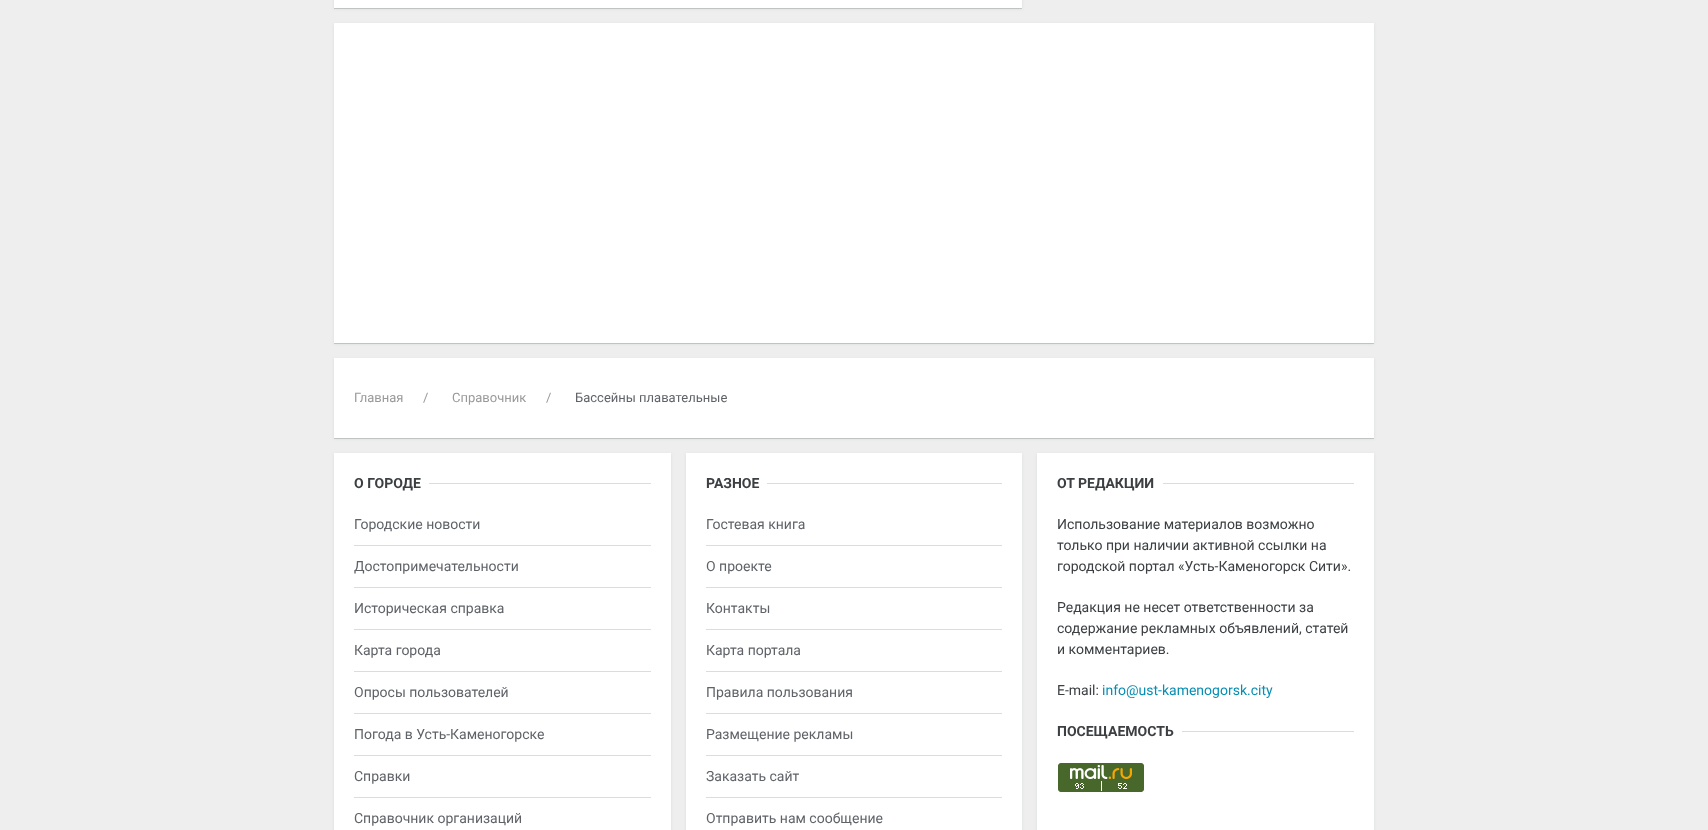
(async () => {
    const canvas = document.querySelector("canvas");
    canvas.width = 1708;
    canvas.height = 830;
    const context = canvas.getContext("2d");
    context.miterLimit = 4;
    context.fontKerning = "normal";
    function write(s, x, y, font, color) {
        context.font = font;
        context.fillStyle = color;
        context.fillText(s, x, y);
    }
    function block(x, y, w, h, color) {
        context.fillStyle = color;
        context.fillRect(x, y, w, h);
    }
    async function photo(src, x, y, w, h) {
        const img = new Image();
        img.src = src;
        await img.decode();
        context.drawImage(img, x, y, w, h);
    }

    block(0, 0, 1708, 830, "rgb(238, 238, 238)");
    context.fillStyle = "rgba(60, 64, 67, 0.1)";
    context.filter = "blur(1.5px)";
    context.beginPath();
    context.rect(334, -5, 688, 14);
    context.fill();
    context.filter = "none";
    context.fillStyle = "rgba(60, 64, 67, 0.2)";
    context.filter = "blur(0.5px)";
    context.beginPath();
    context.rect(334, -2, 688, 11);
    context.fill();
    context.filter = "none";
    block(334, 0, 688, 8, "rgb(255, 255, 255)");
    context.fillStyle = "rgba(60, 64, 67, 0.1)";
    context.filter = "blur(1.5px)";
    context.beginPath();
    context.rect(334, 24, 1040, 320);
    context.fill();
    context.filter = "none";
    context.fillStyle = "rgba(60, 64, 67, 0.2)";
    context.filter = "blur(0.5px)";
    context.beginPath();
    context.rect(334, 24, 1040, 320);
    context.fill();
    context.filter = "none";
    block(334, 23, 1040, 320, "rgb(255, 255, 255)");
    context.fillStyle = "rgba(60, 64, 67, 0.1)";
    context.filter = "blur(1.5px)";
    context.beginPath();
    context.rect(334, 359, 1040, 80);
    context.fill();
    context.filter = "none";
    context.fillStyle = "rgba(60, 64, 67, 0.2)";
    context.filter = "blur(0.5px)";
    context.beginPath();
    context.rect(334, 359, 1040, 80);
    context.fill();
    context.filter = "none";
    block(334, 358, 1040, 80, "rgb(255, 255, 255)");
    write("Главная", 354, 402, "13px Roboto", "rgb(153, 153, 153)");
    write("/", 423, 402, "13px Roboto", "rgb(153, 153, 153)");
    write("Справочник", 452, 402, "13px Roboto", "rgb(153, 153, 153)");
    write("/", 546, 402, "13px Roboto", "rgb(153, 153, 153)");
    write("Бассейны плавательные", 575, 402, "13px Roboto", "rgb(95, 99, 104)");
    context.fillStyle = "rgba(60, 64, 67, 0.1)";
    context.filter = "blur(1.5px)";
    context.beginPath();
    context.rect(334, 454, 337, 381);
    context.fill();
    context.filter = "none";
    context.fillStyle = "rgba(60, 64, 67, 0.2)";
    context.filter = "blur(0.5px)";
    context.beginPath();
    context.rect(334, 454, 337, 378);
    context.fill();
    context.filter = "none";
    block(334, 453, 337, 377, "rgb(255, 255, 255)");
    write("О ГОРОДЕ", 354, 488, "bold 14px Roboto", "rgb(60, 64, 67)");
    block(429, 483, 222, 1, "rgb(218, 220, 224)");
    write("Городские новости", 354, 529, "14px Roboto", "rgb(95, 99, 104)");
    block(354, 545, 297, 1, "rgb(218, 220, 224)");
    write("Достопримечательности", 354, 571, "14px Roboto", "rgb(95, 99, 104)");
    block(354, 587, 297, 1, "rgb(218, 220, 224)");
    write("Историческая справка", 354, 613, "14px Roboto", "rgb(95, 99, 104)");
    block(354, 629, 297, 1, "rgb(218, 220, 224)");
    write("Карта города", 354, 655, "14px Roboto", "rgb(95, 99, 104)");
    block(354, 671, 297, 1, "rgb(218, 220, 224)");
    write("Опросы пользователей", 354, 697, "14px Roboto", "rgb(95, 99, 104)");
    block(354, 713, 297, 1, "rgb(218, 220, 224)");
    write("Погода в Усть-Каменогорске", 354, 739, "14px Roboto", "rgb(95, 99, 104)");
    block(354, 755, 297, 1, "rgb(218, 220, 224)");
    write("Справки", 354, 781, "14px Roboto", "rgb(95, 99, 104)");
    block(354, 797, 297, 1, "rgb(218, 220, 224)");
    write("Справочник организаций", 354, 823, "14px Roboto", "rgb(95, 99, 104)");
    context.fillStyle = "rgba(60, 64, 67, 0.1)";
    context.filter = "blur(1.5px)";
    context.beginPath();
    context.rect(686, 454, 336, 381);
    context.fill();
    context.filter = "none";
    context.fillStyle = "rgba(60, 64, 67, 0.2)";
    context.filter = "blur(0.5px)";
    context.beginPath();
    context.rect(686, 454, 336, 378);
    context.fill();
    context.filter = "none";
    block(686, 453, 336, 377, "rgb(255, 255, 255)");
    write("РАЗНОЕ", 706, 488, "bold 14px Roboto", "rgb(60, 64, 67)");
    block(767, 483, 235, 1, "rgb(218, 220, 224)");
    write("Гостевая книга", 706, 529, "14px Roboto", "rgb(95, 99, 104)");
    block(706, 545, 296, 1, "rgb(218, 220, 224)");
    write("О проекте", 706, 571, "14px Roboto", "rgb(95, 99, 104)");
    block(706, 587, 296, 1, "rgb(218, 220, 224)");
    write("Контакты", 706, 613, "14px Roboto", "rgb(95, 99, 104)");
    block(706, 629, 296, 1, "rgb(218, 220, 224)");
    write("Карта портала", 706, 655, "14px Roboto", "rgb(95, 99, 104)");
    block(706, 671, 296, 1, "rgb(218, 220, 224)");
    write("Правила пользования", 706, 697, "14px Roboto", "rgb(95, 99, 104)");
    block(706, 713, 296, 1, "rgb(218, 220, 224)");
    write("Размещение рекламы", 706, 739, "14px Roboto", "rgb(95, 99, 104)");
    block(706, 755, 296, 1, "rgb(218, 220, 224)");
    write("Заказать сайт", 706, 781, "14px Roboto", "rgb(95, 99, 104)");
    block(706, 797, 296, 1, "rgb(218, 220, 224)");
    write("Отправить нам сообщение", 706, 823, "14px Roboto", "rgb(95, 99, 104)");
    context.fillStyle = "rgba(60, 64, 67, 0.1)";
    context.filter = "blur(1.5px)";
    context.beginPath();
    context.rect(1037, 454, 337, 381);
    context.fill();
    context.filter = "none";
    context.fillStyle = "rgba(60, 64, 67, 0.2)";
    context.filter = "blur(0.5px)";
    context.beginPath();
    context.rect(1037, 454, 337, 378);
    context.fill();
    context.filter = "none";
    block(1037, 453, 337, 377, "rgb(255, 255, 255)");
    write("ОТ РЕДАКЦИИ", 1057, 488, "bold 14px Roboto", "rgb(60, 64, 67)");
    block(1163, 483, 191, 1, "rgb(218, 220, 224)");
    write("Использование материалов возможно", 1057, 529, "14px Roboto", "rgb(60, 64, 67)");
    write("только при наличии активной ссылки на", 1057, 550, "14px Roboto", "rgb(60, 64, 67)");
    write("городской портал «Усть-Каменогорск Сити».", 1057, 571, "14px Roboto", "rgb(60, 64, 67)");
    write("Редакция не несет ответственности за", 1057, 612, "14px Roboto", "rgb(60, 64, 67)");
    write("содержание рекламных объявлений, статей", 1057, 633, "14px Roboto", "rgb(60, 64, 67)");
    write("и комментариев.", 1057, 654, "14px Roboto", "rgb(60, 64, 67)");
    write("E-mail:", 1057, 695, "14px Roboto", "rgb(60, 64, 67)");
    write("info@ust-kamenogorsk.city", 1102, 695, "14px Roboto", "rgb(7, 142, 179)");
    write("ПОСЕЩАЕМОСТЬ", 1057, 736, "bold 14px Roboto", "rgb(60, 64, 67)");
    block(1182, 731, 172, 1, "rgb(218, 220, 224)");
    await photo("media/1.png", 1058, 763, 86, 29);
})();
